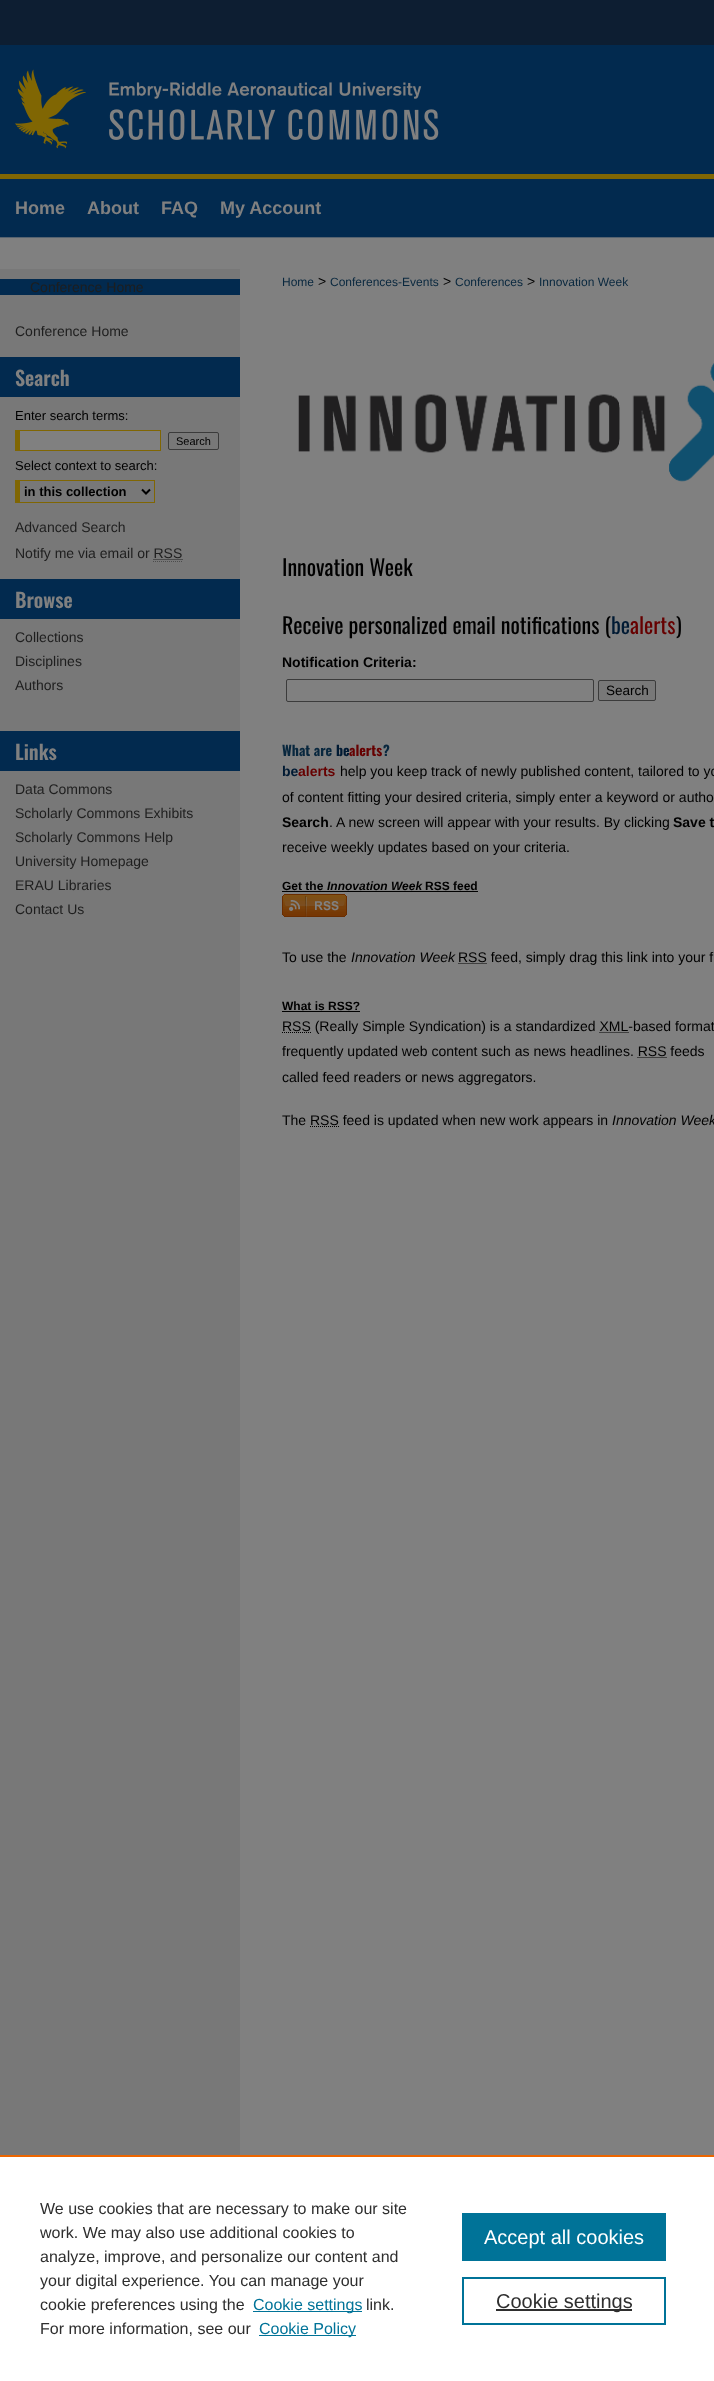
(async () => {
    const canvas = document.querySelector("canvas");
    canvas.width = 714;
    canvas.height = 2381;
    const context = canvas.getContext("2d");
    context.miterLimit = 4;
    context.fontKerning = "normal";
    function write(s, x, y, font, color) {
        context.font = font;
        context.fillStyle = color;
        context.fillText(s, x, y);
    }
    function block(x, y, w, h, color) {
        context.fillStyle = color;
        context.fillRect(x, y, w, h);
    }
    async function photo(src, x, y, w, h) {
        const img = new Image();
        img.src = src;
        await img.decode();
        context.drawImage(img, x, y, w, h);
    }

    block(0, 0, 714, 2381, "rgb(128, 128, 128)");
    await photo("media/1.png", 0, 0, 714, 238);
    await photo("media/2.png", 0, 69, 714, 110);
    write("Home", 15, 214, "bold 18px Liberation Sans", "rgb(128, 128, 128)");
    write("About", 87, 214, "bold 18px Liberation Sans", "rgb(128, 128, 128)");
    write("FAQ", 161, 214, "bold 18px Liberation Sans", "rgb(128, 128, 128)");
    write("My Account", 220, 214, "bold 18px Liberation Sans", "rgb(128, 128, 128)");
    block(0, 269, 240, 1886, "rgb(120, 120, 120)");
    block(0, 279, 240, 16, "rgb(2, 42, 79)");
    write("Conference Home", 30, 292, "14px Liberation Sans", "rgb(30, 30, 30)");
    write("Conference Home", 15, 336, "14px Liberation Sans", "rgb(30, 30, 30)");
    block(0, 357, 240, 40, "rgb(2, 42, 79)");
    write("Search", 15, 386, "600 20px Oswald", "rgb(128, 128, 128)");
    write("Enter search terms:", 15, 420, "13px Liberation Sans", "rgb(0, 0, 0)");
    block(20, 431, 140, 19, "rgb(128, 128, 128)");
    block(15, 430, 146, 1, "rgb(128, 102, 3)");
    block(160, 430, 1, 21, "rgb(128, 102, 3)");
    block(15, 450, 146, 1, "rgb(128, 102, 3)");
    block(15, 430, 5, 21, "rgb(128, 102, 3)");
    context.beginPath();
    context.roundRect(168.5, 432.5, 50, 17, 1.5);
    context.strokeStyle = "rgb(59, 59, 59)";
    context.stroke();
    write("Search", 176, 445, "11px Liberation Sans", "rgb(0, 0, 0)");
    write("Select context to search:", 15, 470, "13px Liberation Sans", "rgb(0, 0, 0)");
    block(15, 480, 140, 1, "rgb(128, 102, 3)");
    block(154, 480, 1, 23, "rgb(128, 102, 3)");
    block(15, 502, 140, 1, "rgb(128, 102, 3)");
    block(15, 480, 5, 23, "rgb(128, 102, 3)");
    context.beginPath();
    context.moveTo(142, 489.5);
    context.lineTo(146, 493.5);
    context.lineTo(150, 489.5);
    context.strokeStyle = "rgb(0, 0, 0)";
    context.lineWidth = 2;
    context.stroke();
    write("in this collection", 24, 496, "bold 13px Liberation Sans", "rgb(0, 0, 0)");
    write("Advanced Search", 15, 532, "14px Liberation Sans", "rgb(30, 30, 30)");
    write("Notify me via email or RSS", 15, 558, "14px Liberation Sans", "rgb(30, 30, 30)");
    context.beginPath();
    context.moveTo(153.5, 559.5);
    context.lineTo(182.5, 559.5);
    context.strokeStyle = "rgb(30, 30, 30)";
    context.lineWidth = 1;
    context.setLineDash([1, 1]);
    context.stroke();
    context.beginPath();
    context.moveTo(153, 561.5);
    context.lineTo(182, 561.5);
    context.strokeStyle = "rgb(77, 77, 77)";
    context.stroke();
    block(0, 579, 240, 40, "rgb(2, 42, 79)");
    write("Browse", 15, 608, "600 20px Oswald", "rgb(128, 128, 128)");
    write("Collections", 15, 642, "14px Liberation Sans", "rgb(30, 30, 30)");
    write("Disciplines", 15, 666, "14px Liberation Sans", "rgb(30, 30, 30)");
    write("Authors", 15, 690, "14px Liberation Sans", "rgb(30, 30, 30)");
    block(0, 731, 240, 40, "rgb(2, 42, 79)");
    write("Links", 15, 760, "600 20px Oswald", "rgb(128, 128, 128)");
    write("Data Commons", 15, 794, "14px Liberation Sans", "rgb(30, 30, 30)");
    write("Scholarly Commons Exhibits", 15, 818, "14px Liberation Sans", "rgb(30, 30, 30)");
    write("Scholarly Commons Help", 15, 842, "14px Liberation Sans", "rgb(30, 30, 30)");
    write("University Homepage", 15, 866, "14px Liberation Sans", "rgb(30, 30, 30)");
    write("ERAU Libraries", 15, 890, "14px Liberation Sans", "rgb(30, 30, 30)");
    write("Contact Us", 15, 914, "14px Liberation Sans", "rgb(30, 30, 30)");
    write("Home", 282, 286, "12px Liberation Sans", "rgb(8, 39, 62)");
    write(">", 318, 286, "14px Liberation Sans", "rgb(0, 0, 0)");
    write("Conferences-Events", 330, 286, "12px Liberation Sans", "rgb(8, 39, 62)");
    write(">", 443, 286, "14px Liberation Sans", "rgb(0, 0, 0)");
    write("Conferences", 455, 286, "12px Liberation Sans", "rgb(8, 39, 62)");
    write(">", 527, 286, "14px Liberation Sans", "rgb(0, 0, 0)");
    write("Innovation Week", 539, 286, "12px Liberation Sans", "rgb(8, 39, 62)");
    await photo("media/3.png", 298, 363, 416, 119);
    write("Innovation Week", 282, 576, "22px Oswald", "rgb(0, 0, 0)");
    write("Receive personalized email notifications (", 282, 634, "22px Oswald", "rgb(0, 0, 0)");
    write("be", 611, 634, "22px Oswald", "rgb(0, 26, 51)");
    write("alerts", 630, 634, "22px Oswald", "rgb(102, 0, 0)");
    write(")", 676, 634, "22px Oswald", "rgb(0, 0, 0)");
    write("Notification Criteria:", 282, 667, "bold 14px Liberation Sans", "rgb(0, 0, 0)");
    context.beginPath();
    context.roundRect(286.5, 679.5, 307, 22, 1.5);
    context.strokeStyle = "rgb(59, 59, 59)";
    context.setLineDash([]);
    context.stroke();
    context.fillStyle = "rgb(120, 120, 120)";
    context.beginPath();
    context.roundRect(598.5, 680.5, 57, 20, 1.5);
    context.fill();
    context.stroke();
    write("Search", 606, 695, "13.5px Liberation Sans", "rgb(0, 0, 0)");
    write("What are", 282, 756, "bold 14px Oswald", "rgb(8, 39, 62)");
    write("be", 336, 756, "bold 14px Oswald", "rgb(0, 26, 51)");
    write("alerts", 349, 756, "bold 14px Oswald", "rgb(102, 0, 0)");
    write("?", 383, 756, "bold 14px Oswald", "rgb(8, 39, 62)");
    write("be", 282, 776, "bold 14px Liberation Sans", "rgb(0, 26, 51)");
    write("alerts", 298, 776, "bold 14px Liberation Sans", "rgb(102, 0, 0)");
    write("help you keep track of newly published content, tailored to yo", 340, 776, "14px Liberation Sans", "rgb(0, 0, 0)");
    write("of content fitting your desired criteria, simply enter a keyword or autho", 282, 802, "14px Liberation Sans", "rgb(0, 0, 0)");
    write("Search", 282, 827, "bold 14px Liberation Sans", "rgb(0, 0, 0)");
    write(".", 329, 827, "14px Liberation Sans", "rgb(0, 0, 0)");
    write("A new screen will appear with your results. By clicking", 336, 827, "14px Liberation Sans", "rgb(0, 0, 0)");
    write("Save t", 673, 827, "bold 14px Liberation Sans", "rgb(0, 0, 0)");
    write("receive weekly updates based on your criteria.", 282, 852, "14px Liberation Sans", "rgb(0, 0, 0)");
    write("Get the", 282, 890, "bold 12px Liberation Sans", "rgb(0, 0, 0)");
    block(282, 891, 196, 1, "rgb(0, 0, 0)");
    write("Innovation Week", 327, 890, "italic bold 12px Liberation Sans", "rgb(0, 0, 0)");
    write("RSS feed", 425, 890, "bold 12px Liberation Sans", "rgb(0, 0, 0)");
    await photo("media/4.png", 282, 894, 65, 23);
    write("To use the", 282, 962, "14px Liberation Sans", "rgb(0, 0, 0)");
    write("Innovation Week", 351, 962, "italic 14px Liberation Sans", "rgb(0, 0, 0)");
    context.beginPath();
    context.moveTo(458.5, 963.5);
    context.lineTo(487, 963.5);
    context.strokeStyle = "rgb(0, 0, 0)";
    context.setLineDash([1, 1]);
    context.stroke();
    write("RSS feed, simply drag this link into your f", 458, 962, "14px Liberation Sans", "rgb(0, 0, 0)");
    write("What is RSS?", 282, 1010, "bold 12px Liberation Sans", "rgb(0, 0, 0)");
    block(282, 1011, 78, 1, "rgb(0, 0, 0)");
    context.beginPath();
    context.moveTo(282, 1032.5);
    context.lineTo(311, 1032.5);
    context.stroke();
    write("RSS (Really Simple Syndication) is a standardized XML-based format", 282, 1031, "14px Liberation Sans", "rgb(0, 0, 0)");
    context.beginPath();
    context.moveTo(599.5, 1032.5);
    context.lineTo(628.5, 1032.5);
    context.stroke();
    write("frequently updated web content such as news headlines. RSS feeds", 282, 1056, "14px Liberation Sans", "rgb(0, 0, 0)");
    context.beginPath();
    context.moveTo(637.5, 1057.5);
    context.lineTo(666.5, 1057.5);
    context.stroke();
    write("called feed readers or news aggregators.", 282, 1082, "14px Liberation Sans", "rgb(0, 0, 0)");
    write("The RSS feed is updated when new work appears in", 282, 1125, "14px Liberation Sans", "rgb(0, 0, 0)");
    write("Innovation Week", 612, 1125, "italic 14px Liberation Sans", "rgb(0, 0, 0)");
    context.beginPath();
    context.moveTo(310, 1126.5);
    context.lineTo(339, 1126.5);
    context.stroke();
    block(0, 2157, 714, 224, "rgb(255, 255, 255)");
    block(0, 2155, 714, 2, "rgb(235, 101, 0)");
    write("We use cookies that are necessary to make our site", 40, 2214, "16px Liberation Sans", "rgb(46, 46, 46)");
    write("work. We may also use additional cookies to", 40, 2238, "16px Liberation Sans", "rgb(46, 46, 46)");
    write("analyze, improve, and personalize our content and", 40, 2262, "16px Liberation Sans", "rgb(46, 46, 46)");
    write("your digital experience. You can manage your", 40, 2286, "16px Liberation Sans", "rgb(46, 46, 46)");
    write("cookie preferences using the", 40, 2310, "16px Liberation Sans", "rgb(46, 46, 46)");
    block(253, 2311, 109, 1, "rgb(0, 115, 152)");
    write("Cookie settings", 253, 2310, "16px Liberation Sans", "rgb(0, 115, 152)");
    write("link.", 366, 2310, "16px Liberation Sans", "rgb(46, 46, 46)");
    write("For more information, see our", 40, 2334, "16px Liberation Sans", "rgb(46, 46, 46)");
    block(259, 2335, 97, 1, "rgb(0, 115, 152)");
    write("Cookie Policy", 259, 2334, "16px Liberation Sans", "rgb(0, 115, 152)");
    block(462, 2213, 204, 48, "rgb(0, 115, 152)");
    write("Accept all cookies", 484, 2244, "20px Liberation Sans", "rgb(255, 255, 255)");
    context.strokeStyle = "rgb(0, 115, 152)";
    context.lineWidth = 2;
    context.setLineDash([]);
    context.strokeRect(463, 2278, 202, 46);
    block(496, 2309, 136, 2, "rgb(46, 46, 46)");
    write("Cookie settings", 496, 2308, "20px Liberation Sans", "rgb(46, 46, 46)");
})();
